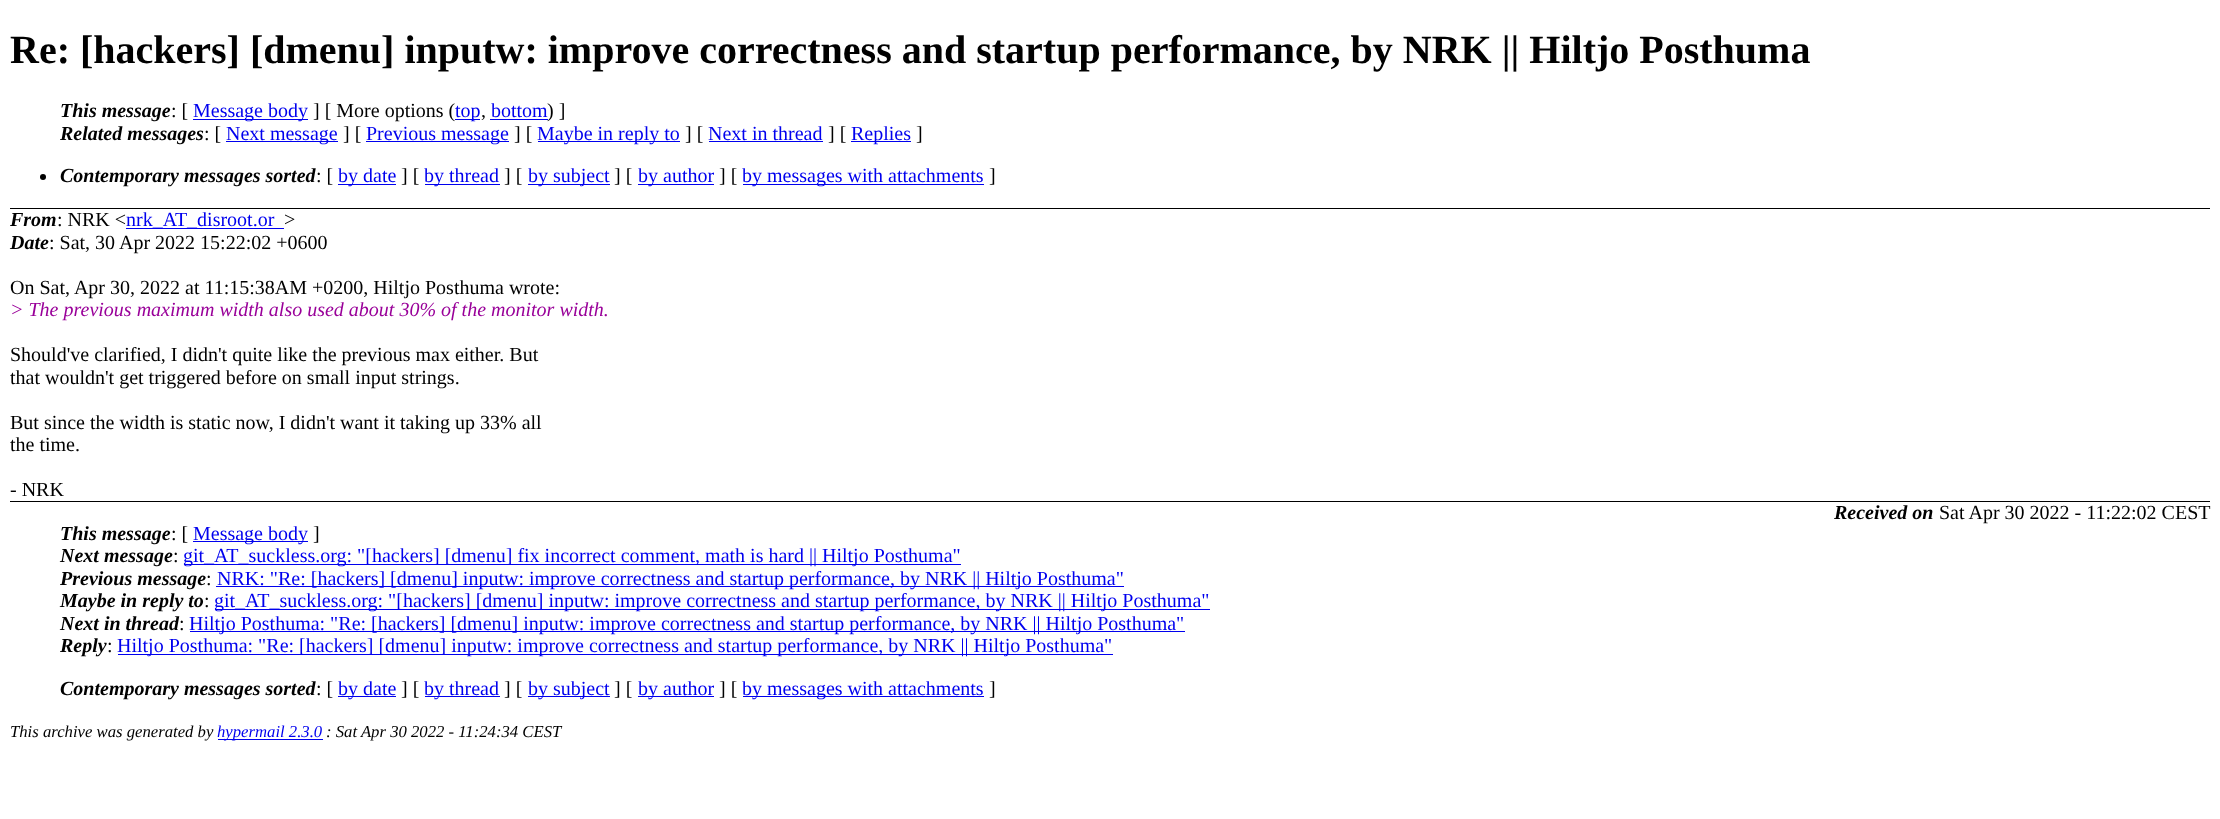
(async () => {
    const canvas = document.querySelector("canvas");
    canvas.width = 2220;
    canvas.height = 819;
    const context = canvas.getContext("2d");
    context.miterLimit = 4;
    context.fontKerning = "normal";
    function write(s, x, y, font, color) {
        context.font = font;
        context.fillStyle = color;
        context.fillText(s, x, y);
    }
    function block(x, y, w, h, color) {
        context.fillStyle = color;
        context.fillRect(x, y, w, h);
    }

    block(0, 0, 2220, 819, "rgb(255, 255, 255)");
    block(10, 208, 2200, 1, "rgb(0, 0, 0)");
    write("Re: [hackers] [dmenu] inputw: improve correctness and startup performance, by NRK || Hiltjo Posthuma", 10, 63, "bold 40px Liberation Serif", "rgb(0, 0, 0)");
    write("This message", 60, 117, "italic bold 20px Liberation Serif", "rgb(0, 0, 0)");
    write(": [", 171, 117, "20px Liberation Serif", "rgb(0, 0, 0)");
    block(193, 119, 115, 1, "rgb(0, 0, 238)");
    write("Message body", 193, 117, "20px Liberation Serif", "rgb(0, 0, 238)");
    write("] [ More options (", 313, 117, "20px Liberation Serif", "rgb(0, 0, 0)");
    block(455, 119, 25, 1, "rgb(0, 0, 238)");
    write("top", 455, 117, "20px Liberation Serif", "rgb(0, 0, 238)");
    write(",", 481, 117, "20px Liberation Serif", "rgb(0, 0, 0)");
    write("bottom", 491, 117, "20px Liberation Serif", "rgb(0, 0, 238)");
    block(490, 119, 58, 1, "rgb(0, 0, 238)");
    write(") ]", 547, 117, "20px Liberation Serif", "rgb(0, 0, 0)");
    write("Related messages", 60, 140, "italic bold 20px Liberation Serif", "rgb(0, 0, 0)");
    write(": [", 204, 140, "20px Liberation Serif", "rgb(0, 0, 0)");
    block(226, 141, 112, 1, "rgb(0, 0, 238)");
    write("Next message", 226, 140, "20px Liberation Serif", "rgb(0, 0, 238)");
    write("] [", 343, 140, "20px Liberation Serif", "rgb(0, 0, 0)");
    block(366, 141, 143, 1, "rgb(0, 0, 238)");
    write("Previous message", 366, 140, "20px Liberation Serif", "rgb(0, 0, 238)");
    write("] [", 514, 140, "20px Liberation Serif", "rgb(0, 0, 0)");
    block(538, 141, 142, 1, "rgb(0, 0, 238)");
    write("Maybe in reply to", 537, 140, "20px Liberation Serif", "rgb(0, 0, 238)");
    write("] [", 685, 140, "20px Liberation Serif", "rgb(0, 0, 0)");
    write("Next in thread", 708, 140, "20px Liberation Serif", "rgb(0, 0, 238)");
    block(709, 141, 114, 1, "rgb(0, 0, 238)");
    write("] [", 828, 140, "20px Liberation Serif", "rgb(0, 0, 0)");
    block(851, 141, 60, 1, "rgb(0, 0, 238)");
    write("Replies", 851, 140, "20px Liberation Serif", "rgb(0, 0, 238)");
    write("]", 916, 140, "20px Liberation Serif", "rgb(0, 0, 0)");
    context.beginPath();
    context.arc(43, 177, 3, 0, Math.PI * 2);
    context.fill();
    write("Contemporary messages sorted", 60, 182, "italic bold 20px Liberation Serif", "rgb(0, 0, 0)");
    write(": [", 316, 182, "20px Liberation Serif", "rgb(0, 0, 0)");
    block(338, 184, 58, 1, "rgb(0, 0, 238)");
    write("by date", 338, 182, "20px Liberation Serif", "rgb(0, 0, 238)");
    write("] [", 401, 182, "20px Liberation Serif", "rgb(0, 0, 0)");
    block(425, 184, 75, 1, "rgb(0, 0, 238)");
    write("by thread", 424, 182, "20px Liberation Serif", "rgb(0, 0, 238)");
    write("] [", 504, 182, "20px Liberation Serif", "rgb(0, 0, 0)");
    block(528, 184, 82, 1, "rgb(0, 0, 238)");
    write("by subject", 528, 182, "20px Liberation Serif", "rgb(0, 0, 238)");
    write("] [", 614, 182, "20px Liberation Serif", "rgb(0, 0, 0)");
    block(638, 184, 76, 1, "rgb(0, 0, 238)");
    write("by author", 638, 182, "20px Liberation Serif", "rgb(0, 0, 238)");
    write("] [", 719, 182, "20px Liberation Serif", "rgb(0, 0, 0)");
    block(743, 184, 241, 1, "rgb(0, 0, 238)");
    write("by messages with attachments", 742, 182, "20px Liberation Serif", "rgb(0, 0, 238)");
    write("]", 989, 182, "20px Liberation Serif", "rgb(0, 0, 0)");
    write("From", 10, 226, "italic bold 20px Liberation Serif", "rgb(0, 0, 0)");
    write(": NRK <", 57, 226, "20px Liberation Serif", "rgb(0, 0, 0)");
    block(126, 228, 158, 1, "rgb(0, 0, 238)");
    write("nrk_AT_disroot.or", 126, 226, "20px Liberation Serif", "rgb(0, 0, 238)");
    write(">", 284, 226, "20px Liberation Serif", "rgb(0, 0, 0)");
    write("Date", 10, 249, "italic bold 20px Liberation Serif", "rgb(0, 0, 0)");
    write(": Sat, 30 Apr 2022 15:22:02 +0600", 49, 249, "20px Liberation Serif", "rgb(0, 0, 0)");
    write("On Sat, Apr 30, 2022 at 11:15:38AM +0200, Hiltjo Posthuma wrote:", 10, 294, "20px Liberation Serif", "rgb(0, 0, 0)");
    write("> The previous maximum width also used about 30% of the monitor width.", 10, 316, "italic 20px Liberation Serif", "rgb(153, 0, 153)");
    write("Should've clarified, I didn't quite like the previous max either. But", 10, 361, "20px Liberation Serif", "rgb(0, 0, 0)");
    write("that wouldn't get triggered before on small input strings.", 10, 384, "20px Liberation Serif", "rgb(0, 0, 0)");
    write("But since the width is static now, I didn't want it taking up 33% all", 10, 429, "20px Liberation Serif", "rgb(0, 0, 0)");
    write("the time.", 10, 451, "20px Liberation Serif", "rgb(0, 0, 0)");
    write("- NRK", 10, 496, "20px Liberation Serif", "rgb(0, 0, 0)");
    write("Received on", 1834, 519, "italic bold 20px Liberation Serif", "rgb(0, 0, 0)");
    write("Sat Apr 30 2022 - 11:22:02 CEST", 1939, 519, "20px Liberation Serif", "rgb(0, 0, 0)");
    block(10, 501, 2200, 1, "rgb(0, 0, 0)");
    write("This message", 60, 540, "italic bold 20px Liberation Serif", "rgb(0, 0, 0)");
    write(": [", 171, 540, "20px Liberation Serif", "rgb(0, 0, 0)");
    block(193, 541, 115, 1, "rgb(0, 0, 238)");
    write("Message body", 193, 540, "20px Liberation Serif", "rgb(0, 0, 238)");
    write("]", 313, 540, "20px Liberation Serif", "rgb(0, 0, 0)");
    write("Next message", 60, 562, "italic bold 20px Liberation Serif", "rgb(0, 0, 0)");
    write(":", 173, 562, "20px Liberation Serif", "rgb(0, 0, 0)");
    block(184, 564, 777, 1, "rgb(0, 0, 238)");
    write("git_AT_suckless.org: \"[hackers] [dmenu] fix incorrect comment, math is hard || Hiltjo Posthuma\"", 183, 562, "20px Liberation Serif", "rgb(0, 0, 238)");
    write("Previous message", 60, 585, "italic bold 20px Liberation Serif", "rgb(0, 0, 0)");
    write(":", 206, 585, "20px Liberation Serif", "rgb(0, 0, 0)");
    block(216, 586, 908, 1, "rgb(0, 0, 238)");
    write("NRK: \"Re: [hackers] [dmenu] inputw: improve correctness and startup performance, by NRK || Hiltjo Posthuma\"", 217, 585, "20px Liberation Serif", "rgb(0, 0, 238)");
    write("Maybe in reply to", 60, 607, "italic bold 20px Liberation Serif", "rgb(0, 0, 0)");
    write(":", 204, 607, "20px Liberation Serif", "rgb(0, 0, 0)");
    block(215, 609, 995, 1, "rgb(0, 0, 238)");
    write("git_AT_suckless.org: \"[hackers] [dmenu] inputw: improve correctness and startup performance, by NRK || Hiltjo Posthuma\"", 214, 607, "20px Liberation Serif", "rgb(0, 0, 238)");
    write("Next in thread", 60, 630, "italic bold 20px Liberation Serif", "rgb(0, 0, 0)");
    write(":", 179, 630, "20px Liberation Serif", "rgb(0, 0, 0)");
    block(190, 631, 995, 1, "rgb(0, 0, 238)");
    write("Hiltjo Posthuma: \"Re: [hackers] [dmenu] inputw: improve correctness and startup performance, by NRK || Hiltjo Posthuma\"", 189, 630, "20px Liberation Serif", "rgb(0, 0, 238)");
    write("Reply", 60, 652, "italic bold 20px Liberation Serif", "rgb(0, 0, 0)");
    write(":", 107, 652, "20px Liberation Serif", "rgb(0, 0, 0)");
    block(118, 654, 995, 1, "rgb(0, 0, 238)");
    write("Hiltjo Posthuma: \"Re: [hackers] [dmenu] inputw: improve correctness and startup performance, by NRK || Hiltjo Posthuma\"", 117, 652, "20px Liberation Serif", "rgb(0, 0, 238)");
    write("Contemporary messages sorted", 60, 695, "italic bold 20px Liberation Serif", "rgb(0, 0, 0)");
    write(": [", 316, 695, "20px Liberation Serif", "rgb(0, 0, 0)");
    block(338, 696, 58, 1, "rgb(0, 0, 238)");
    write("by date", 338, 695, "20px Liberation Serif", "rgb(0, 0, 238)");
    write("] [", 401, 695, "20px Liberation Serif", "rgb(0, 0, 0)");
    block(425, 696, 75, 1, "rgb(0, 0, 238)");
    write("by thread", 424, 695, "20px Liberation Serif", "rgb(0, 0, 238)");
    write("] [", 504, 695, "20px Liberation Serif", "rgb(0, 0, 0)");
    block(528, 696, 82, 1, "rgb(0, 0, 238)");
    write("by subject", 528, 695, "20px Liberation Serif", "rgb(0, 0, 238)");
    write("] [", 614, 695, "20px Liberation Serif", "rgb(0, 0, 0)");
    block(638, 696, 76, 1, "rgb(0, 0, 238)");
    write("by author", 638, 695, "20px Liberation Serif", "rgb(0, 0, 238)");
    write("] [", 719, 695, "20px Liberation Serif", "rgb(0, 0, 0)");
    block(743, 696, 241, 1, "rgb(0, 0, 238)");
    write("by messages with attachments", 742, 695, "20px Liberation Serif", "rgb(0, 0, 238)");
    write("]", 989, 695, "20px Liberation Serif", "rgb(0, 0, 0)");
    write("This archive was generated by", 10, 737, "italic 16.7px Liberation Serif", "rgb(0, 0, 0)");
    block(218, 739, 105, 1, "rgb(0, 0, 238)");
    write("hypermail 2.3.0", 217, 737, "italic 16.7px Liberation Serif", "rgb(0, 0, 238)");
    write(": Sat Apr 30 2022 - 11:24:34 CEST", 326, 737, "italic 16.7px Liberation Serif", "rgb(0, 0, 0)");
})();
